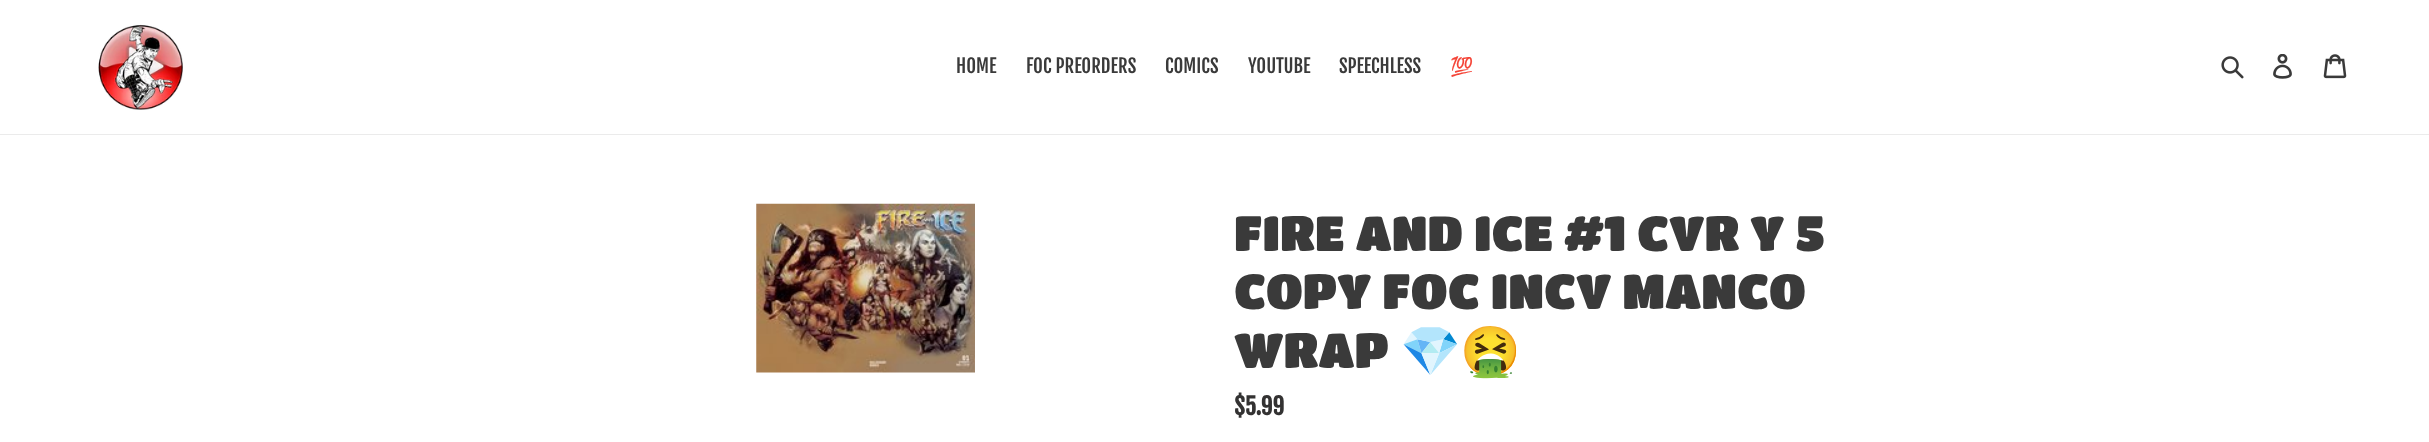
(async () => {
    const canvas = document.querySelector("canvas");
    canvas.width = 2429;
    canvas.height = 442;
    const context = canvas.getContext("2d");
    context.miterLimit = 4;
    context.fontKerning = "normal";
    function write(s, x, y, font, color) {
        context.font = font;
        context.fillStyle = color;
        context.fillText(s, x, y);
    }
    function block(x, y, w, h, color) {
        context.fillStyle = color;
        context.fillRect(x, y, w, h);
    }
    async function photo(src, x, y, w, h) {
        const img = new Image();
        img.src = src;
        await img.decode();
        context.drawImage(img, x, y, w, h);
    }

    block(0, 0, 2429, 442, "rgb(255, 255, 255)");
    block(0, 134, 2429, 1, "rgb(235, 235, 235)");
    await photo("media/1.png", 98, 24, 85, 86);
    write("HOME", 956, 73, "18.75px Fjalla One", "rgb(58, 58, 58)");
    write("FOC PREORDERS", 1026, 73, "18.75px Fjalla One", "rgb(58, 58, 58)");
    write("COMICS", 1165, 73, "18.75px Fjalla One", "rgb(58, 58, 58)");
    write("YOUTUBE", 1248, 73, "18.75px Fjalla One", "rgb(58, 58, 58)");
    write("SPEECHLESS", 1339, 73, "18.75px Fjalla One", "rgb(58, 58, 58)");
    write("💯", 1450, 73, "18.75px Noto Color Emoji", "rgb(58, 58, 58)");
    await photo("media/2.png", 2221, 56, 23, 23);
    await photo("media/3.png", 2273, 54, 19, 25);
    await photo("media/4.png", 2323, 54, 24, 25);
    await photo("media/5.png", 756, 203, 219, 170);
    write("FIRE AND ICE #1 CVR Y 5", 1234, 251, "48.75px Titan One", "rgb(58, 58, 58)");
    write("COPY FOC INCV MANCO", 1234, 309, "48.75px Titan One", "rgb(58, 58, 58)");
    write("WRAP", 1234, 368, "48.75px Titan One", "rgb(58, 58, 58)");
    write("💎🤮", 1400, 368, "48.75px Noto Color Emoji", "rgb(58, 58, 58)");
    write("$5.99", 1234, 415, "bold 23px Fjalla One", "rgb(51, 50, 50)");
})();
